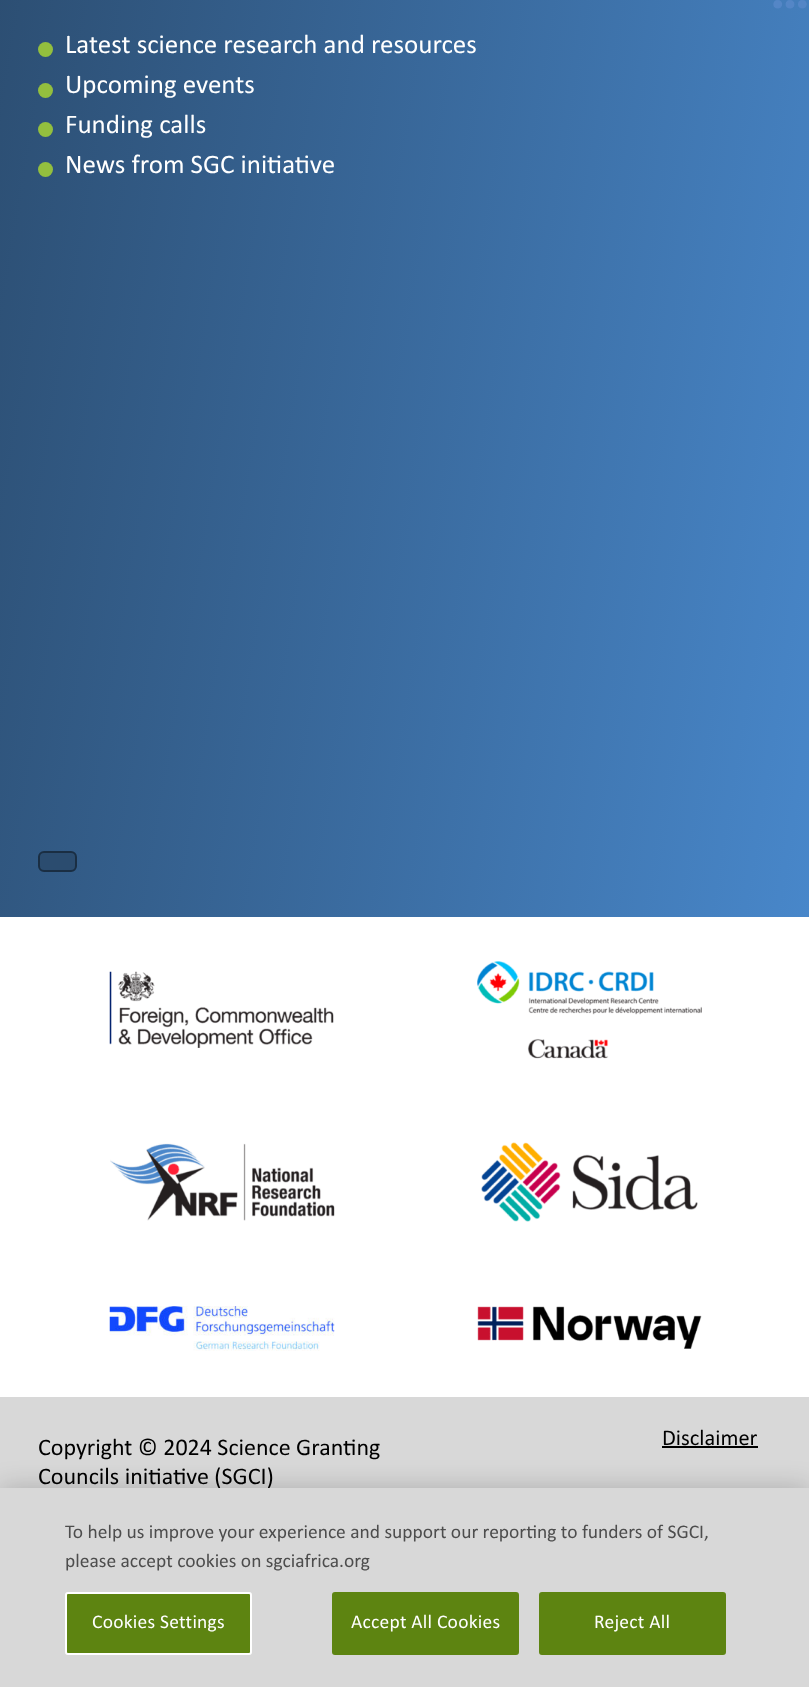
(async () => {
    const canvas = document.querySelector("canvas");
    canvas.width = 809;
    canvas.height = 1687;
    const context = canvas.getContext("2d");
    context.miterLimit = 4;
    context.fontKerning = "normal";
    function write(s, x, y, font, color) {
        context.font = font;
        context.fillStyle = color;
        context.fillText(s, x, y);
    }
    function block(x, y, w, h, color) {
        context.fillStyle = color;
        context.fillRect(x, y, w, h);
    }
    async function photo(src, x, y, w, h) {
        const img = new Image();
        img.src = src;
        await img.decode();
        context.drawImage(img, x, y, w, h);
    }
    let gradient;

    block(0, 0, 809, 1687, "rgb(255, 255, 255)");
    gradient = context.createLinearGradient(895, 402, -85, 240);
    gradient.addColorStop(0, "rgb(72, 135, 202)");
    gradient.addColorStop(1, "rgb(43, 76, 111)");
    context.fillStyle = gradient;
    context.fillRect(0, 0, 809, 917);
    await photo("media/1.png", 773, 0, 34, 9);
    context.fillStyle = "rgb(147, 191, 62)";
    context.beginPath();
    context.arc(45.5, 49.5, 7.5, 0, Math.PI * 2);
    context.fill();
    write("Latest science research and resources", 65, 53, "27px Calibri", "rgb(255, 255, 255)");
    context.fillStyle = "rgb(147, 191, 62)";
    context.beginPath();
    context.arc(45.5, 90.5, 7.5, 0, Math.PI * 2);
    context.fill();
    write("Upcoming events", 65, 93, "27px Calibri", "rgb(255, 255, 255)");
    context.fillStyle = "rgb(147, 191, 62)";
    context.beginPath();
    context.arc(45.5, 129.5, 7.5, 0, Math.PI * 2);
    context.fill();
    write("Funding calls", 65, 133, "27px Calibri", "rgb(255, 255, 255)");
    context.fillStyle = "rgb(147, 191, 62)";
    context.beginPath();
    context.arc(45.5, 169.5, 7.5, 0, Math.PI * 2);
    context.fill();
    write("News from SGC initiative", 65, 173, "27px Calibri", "rgb(255, 255, 255)");
    context.fillStyle = "rgb(43, 76, 111)";
    context.beginPath();
    context.roundRect(39, 852, 37, 19, 5);
    context.fill();
    context.strokeStyle = "rgb(26, 46, 67)";
    context.lineWidth = 2;
    context.stroke();
    await photo("media/2.png", 109, 971, 225, 77);
    await photo("media/3.png", 477, 961, 225, 98);
    await photo("media/4.png", 110, 1143, 225, 78);
    await photo("media/5.png", 481, 1142, 217, 80);
    await photo("media/6.png", 109, 1306, 226, 45);
    await photo("media/7.png", 477, 1306, 225, 43);
    block(0, 1397, 809, 91, "rgb(216, 216, 216)");
    write("Copyright © 2024 Science Granting", 38, 1455, "24px Calibri", "rgb(0, 0, 0)");
    write("Councils initiative (SGCI)", 38, 1484, "24px Calibri", "rgb(0, 0, 0)");
    write("Disclaimer", 662, 1445, "22.5px Calibri", "rgb(0, 0, 0)");
    block(662, 1446, 96, 2, "rgb(0, 0, 0)");
    context.fillStyle = "rgba(0, 0, 0, 0.2)";
    context.filter = "blur(13.5px)";
    context.beginPath();
    context.rect(0, 1488, 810, 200);
    context.fill();
    context.filter = "none";
    block(0, 1488, 809, 199, "rgb(216, 216, 216)");
    write("To help us improve your experience and support our reporting to funders of SGCI,", 65, 1538, "19.5px Calibri", "rgb(77, 77, 77)");
    write("please accept cookies on sgciafrica.org", 65, 1567, "19.5px Calibri", "rgb(77, 77, 77)");
    context.fillStyle = "rgb(93, 132, 17)";
    context.beginPath();
    context.roundRect(66, 1593, 185, 61, 2);
    context.fill();
    context.strokeStyle = "rgb(255, 255, 255)";
    context.stroke();
    context.letterSpacing = "0.25px";
    write("Cookies Settings", 92, 1628, "19.5px Calibri", "rgb(255, 255, 255)");
    context.fillStyle = "rgb(93, 132, 17)";
    context.beginPath();
    context.roundRect(333, 1593, 185, 61, 2);
    context.fill();
    context.strokeStyle = "rgb(93, 132, 17)";
    context.stroke();
    write("Accept All Cookies", 351, 1628, "19.5px Calibri", "rgb(255, 255, 255)");
    context.fillStyle = "rgb(93, 132, 17)";
    context.beginPath();
    context.roundRect(540, 1593, 185, 61, 2);
    context.fill();
    context.stroke();
    write("Reject All", 594, 1628, "19.5px Calibri", "rgb(255, 255, 255)");
})();
